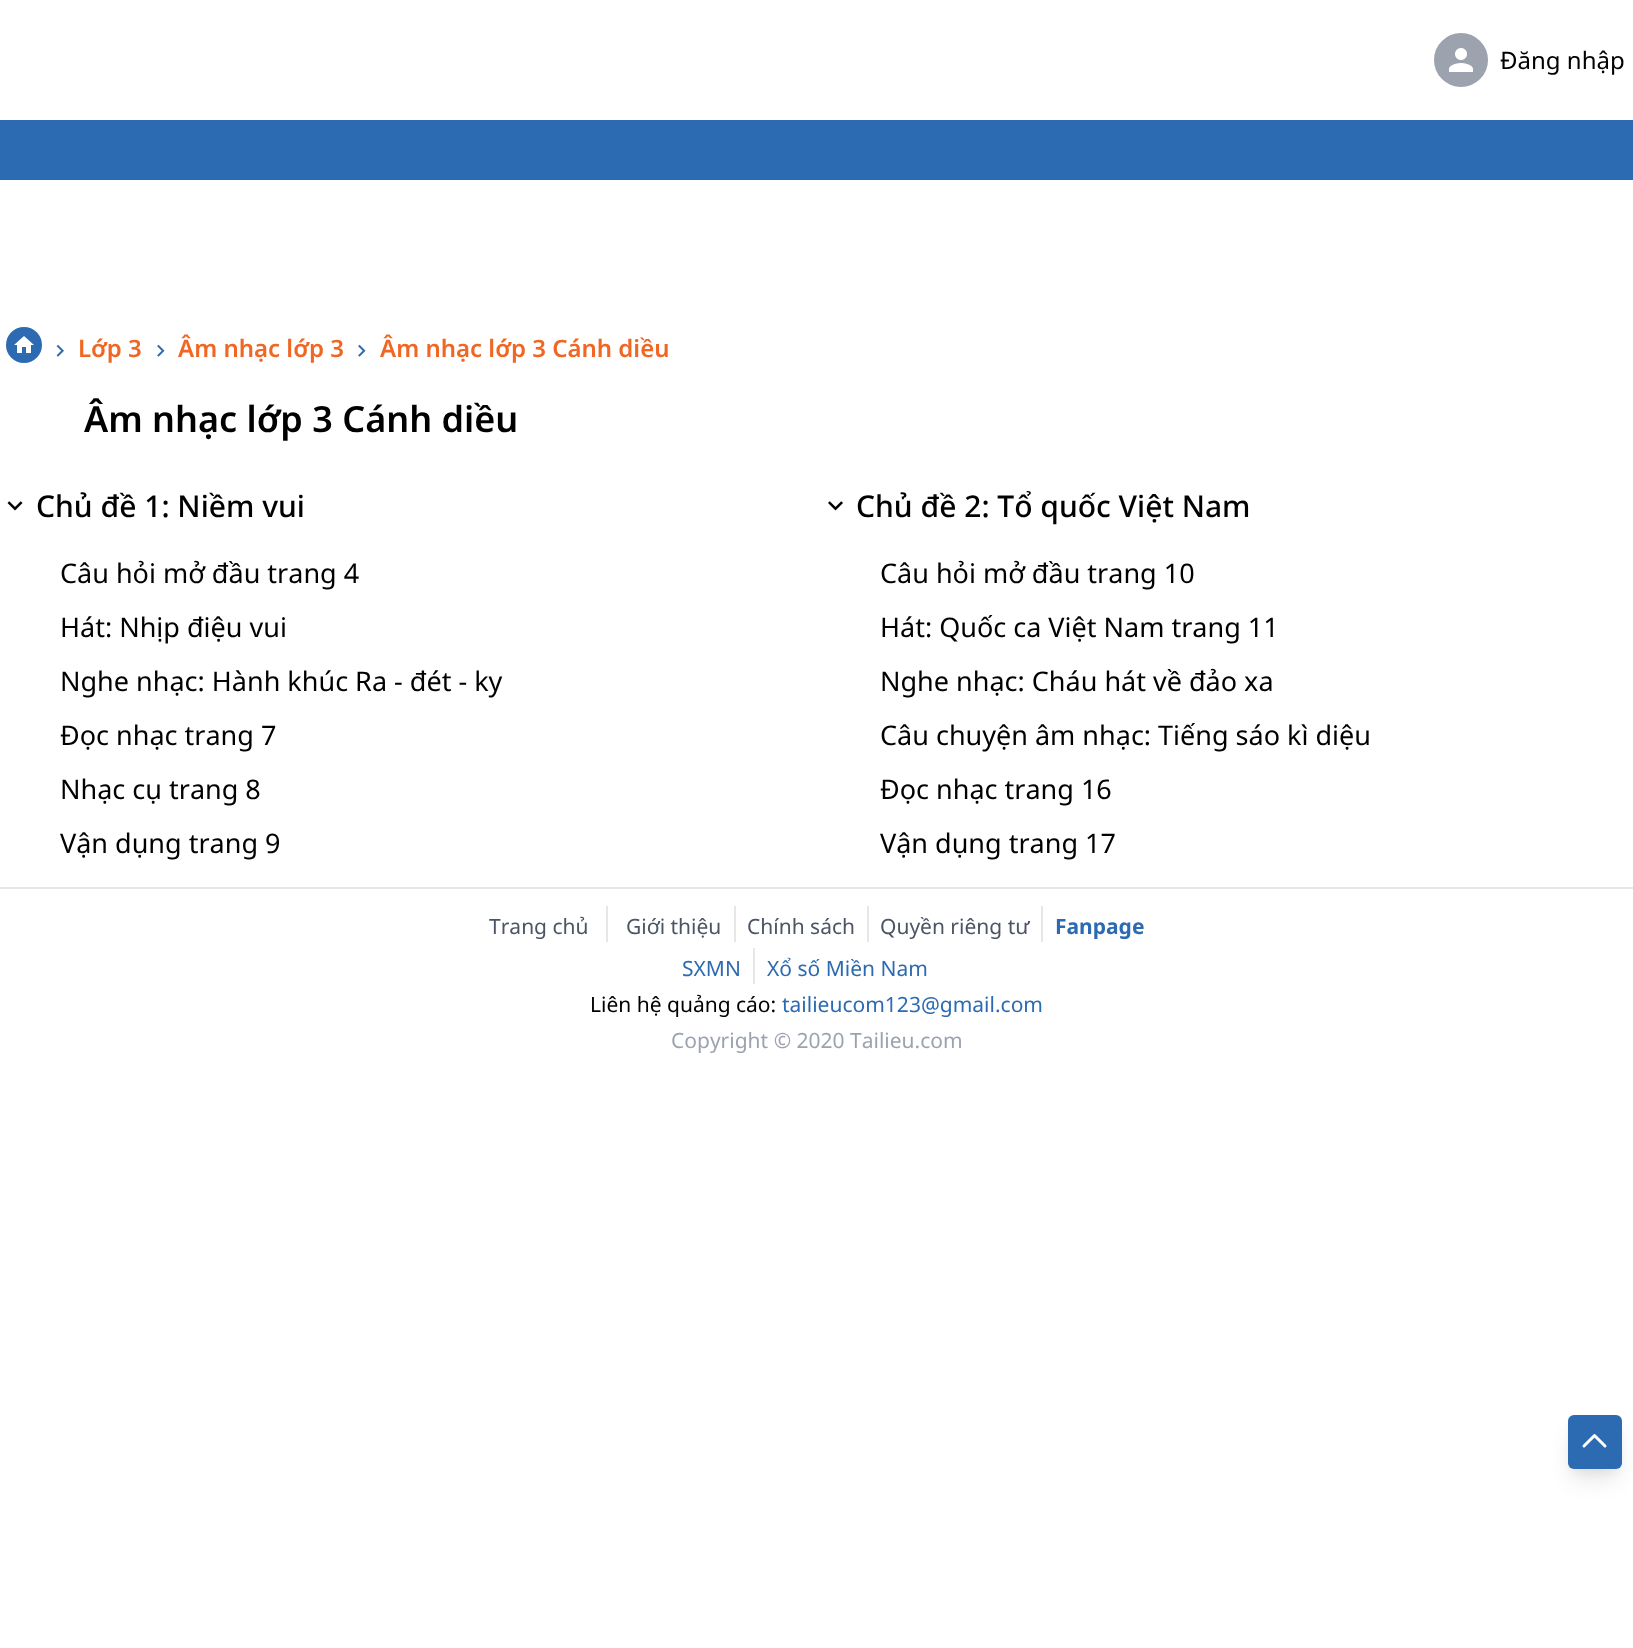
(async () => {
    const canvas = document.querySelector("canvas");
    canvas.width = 1633;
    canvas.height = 1648;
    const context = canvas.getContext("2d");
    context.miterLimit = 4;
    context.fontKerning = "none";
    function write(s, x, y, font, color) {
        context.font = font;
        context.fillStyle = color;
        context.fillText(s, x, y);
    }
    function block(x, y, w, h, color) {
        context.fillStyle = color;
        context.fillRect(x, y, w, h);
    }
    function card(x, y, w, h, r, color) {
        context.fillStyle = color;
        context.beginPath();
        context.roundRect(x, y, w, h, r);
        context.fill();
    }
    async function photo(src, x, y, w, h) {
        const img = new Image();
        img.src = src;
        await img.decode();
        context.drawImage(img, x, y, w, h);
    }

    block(0, 0, 1633, 1648, "rgb(255, 255, 255)");
    context.fillStyle = "rgb(156, 163, 175)";
    context.beginPath();
    context.arc(1461, 60, 26, 0, Math.PI * 2);
    context.fill();
    context.strokeStyle = "rgb(156, 163, 175)";
    context.lineWidth = 2;
    context.stroke();
    await photo("media/1.png", 1449, 48, 24, 24);
    write("Đăng nhập", 1500, 69, "24px Noto Sans", "rgb(0, 0, 0)");
    block(0, 120, 1633, 60, "rgb(44, 106, 177)");
    context.beginPath();
    context.arc(24, 345, 18, 0, Math.PI * 2);
    context.fill();
    await photo("media/2.png", 14, 336, 20, 17);
    await photo("media/3.png", 56, 344, 8, 13);
    write("Lớp 3", 78, 357, "600 24px Noto Sans", "rgb(240, 102, 34)");
    await photo("media/4.png", 157, 344, 8, 13);
    write("Âm nhạc lớp 3", 178, 357, "600 24px Noto Sans", "rgb(240, 102, 34)");
    await photo("media/4.png", 358, 344, 8, 13);
    write("Âm nhạc lớp 3 Cánh diều", 380, 357, "600 24px Noto Sans", "rgb(240, 102, 34)");
    write("Âm nhạc lớp 3 Cánh diều", 84, 432, "600 36px Noto Sans", "rgb(0, 0, 0)");
    await photo("media/5.png", 7, 501, 16, 10);
    write("Chủ đề 1: Niềm vui", 36, 517, "500 30px Noto Sans", "rgb(0, 0, 0)");
    write("Câu hỏi mở đầu trang 4", 60, 583, "27px Noto Sans", "rgb(0, 0, 0)");
    write("Hát: Nhịp điệu vui", 60, 637, "27px Noto Sans", "rgb(0, 0, 0)");
    write("Nghe nhạc: Hành khúc Ra - đét - ky", 60, 691, "27px Noto Sans", "rgb(0, 0, 0)");
    write("Đọc nhạc trang 7", 60, 745, "27px Noto Sans", "rgb(0, 0, 0)");
    write("Nhạc cụ trang 8", 60, 799, "27px Noto Sans", "rgb(0, 0, 0)");
    write("Vận dụng trang 9", 60, 853, "27px Noto Sans", "rgb(0, 0, 0)");
    await photo("media/6.png", 828, 501, 15, 10);
    write("Chủ đề 2: Tổ quốc Việt Nam", 856, 517, "500 30px Noto Sans", "rgb(0, 0, 0)");
    write("Câu hỏi mở đầu trang 10", 880, 583, "27px Noto Sans", "rgb(0, 0, 0)");
    write("Hát: Quốc ca Việt Nam trang 11", 880, 637, "27px Noto Sans", "rgb(0, 0, 0)");
    write("Nghe nhạc: Cháu hát về đảo xa", 880, 691, "27px Noto Sans", "rgb(0, 0, 0)");
    write("Câu chuyện âm nhạc: Tiếng sáo kì diệu", 880, 745, "27px Noto Sans", "rgb(0, 0, 0)");
    write("Đọc nhạc trang 16", 880, 799, "27px Noto Sans", "rgb(0, 0, 0)");
    write("Vận dụng trang 17", 880, 853, "27px Noto Sans", "rgb(0, 0, 0)");
    context.fillStyle = "rgba(0, 0, 0, 0.05)";
    context.filter = "blur(4.5px)";
    context.beginPath();
    context.roundRect(1571, 1424, 48, 48, 3);
    context.fill();
    context.filter = "none";
    context.fillStyle = "rgba(0, 0, 0, 0.1)";
    context.filter = "blur(11px)";
    context.beginPath();
    context.roundRect(1572, 1434, 45, 45, 1.5);
    context.fill();
    context.filter = "none";
    card(1568, 1415, 54, 54, 6, "rgb(44, 106, 177)");
    context.beginPath();
    context.moveTo(1584, 1446);
    context.lineTo(1594.5, 1435.5);
    context.lineTo(1605, 1446);
    context.strokeStyle = "rgb(255, 255, 255)";
    context.lineWidth = 3;
    context.lineCap = "round";
    context.lineJoin = "round";
    context.stroke();
    block(0, 887, 1633, 2, "rgb(230, 230, 230)");
    block(606, 906, 2, 36, "rgb(229, 231, 235)");
    write("Trang chủ", 489, 934, "21px Noto Sans", "rgb(75, 85, 99)");
    block(734, 906, 2, 36, "rgb(229, 231, 235)");
    write("Giới thiệu", 626, 934, "21px Noto Sans", "rgb(75, 85, 99)");
    block(867, 906, 2, 36, "rgb(229, 231, 235)");
    write("Chính sách", 747, 934, "21px Noto Sans", "rgb(75, 85, 99)");
    block(1041, 906, 2, 36, "rgb(229, 231, 235)");
    write("Quyền riêng tư", 880, 934, "21px Noto Sans", "rgb(75, 85, 99)");
    write("Fanpage", 1055, 934, "bold 21px Noto Sans", "rgb(44, 106, 177)");
    block(753, 948, 2, 36, "rgb(229, 231, 235)");
    write("SXMN", 682, 976, "21px Noto Sans", "rgb(44, 106, 177)");
    write("Xổ số Miền Nam", 767, 976, "21px Noto Sans", "rgb(44, 106, 177)");
    write("Liên hệ quảng cáo:", 590, 1012, "21px Noto Sans", "rgb(0, 0, 0)");
    write("tailieucom123@gmail.com", 782, 1012, "21px Noto Sans", "rgb(44, 106, 177)");
    write("Copyright © 2020 Tailieu.com", 671, 1048, "21px Noto Sans", "rgb(156, 163, 175)");
})();
